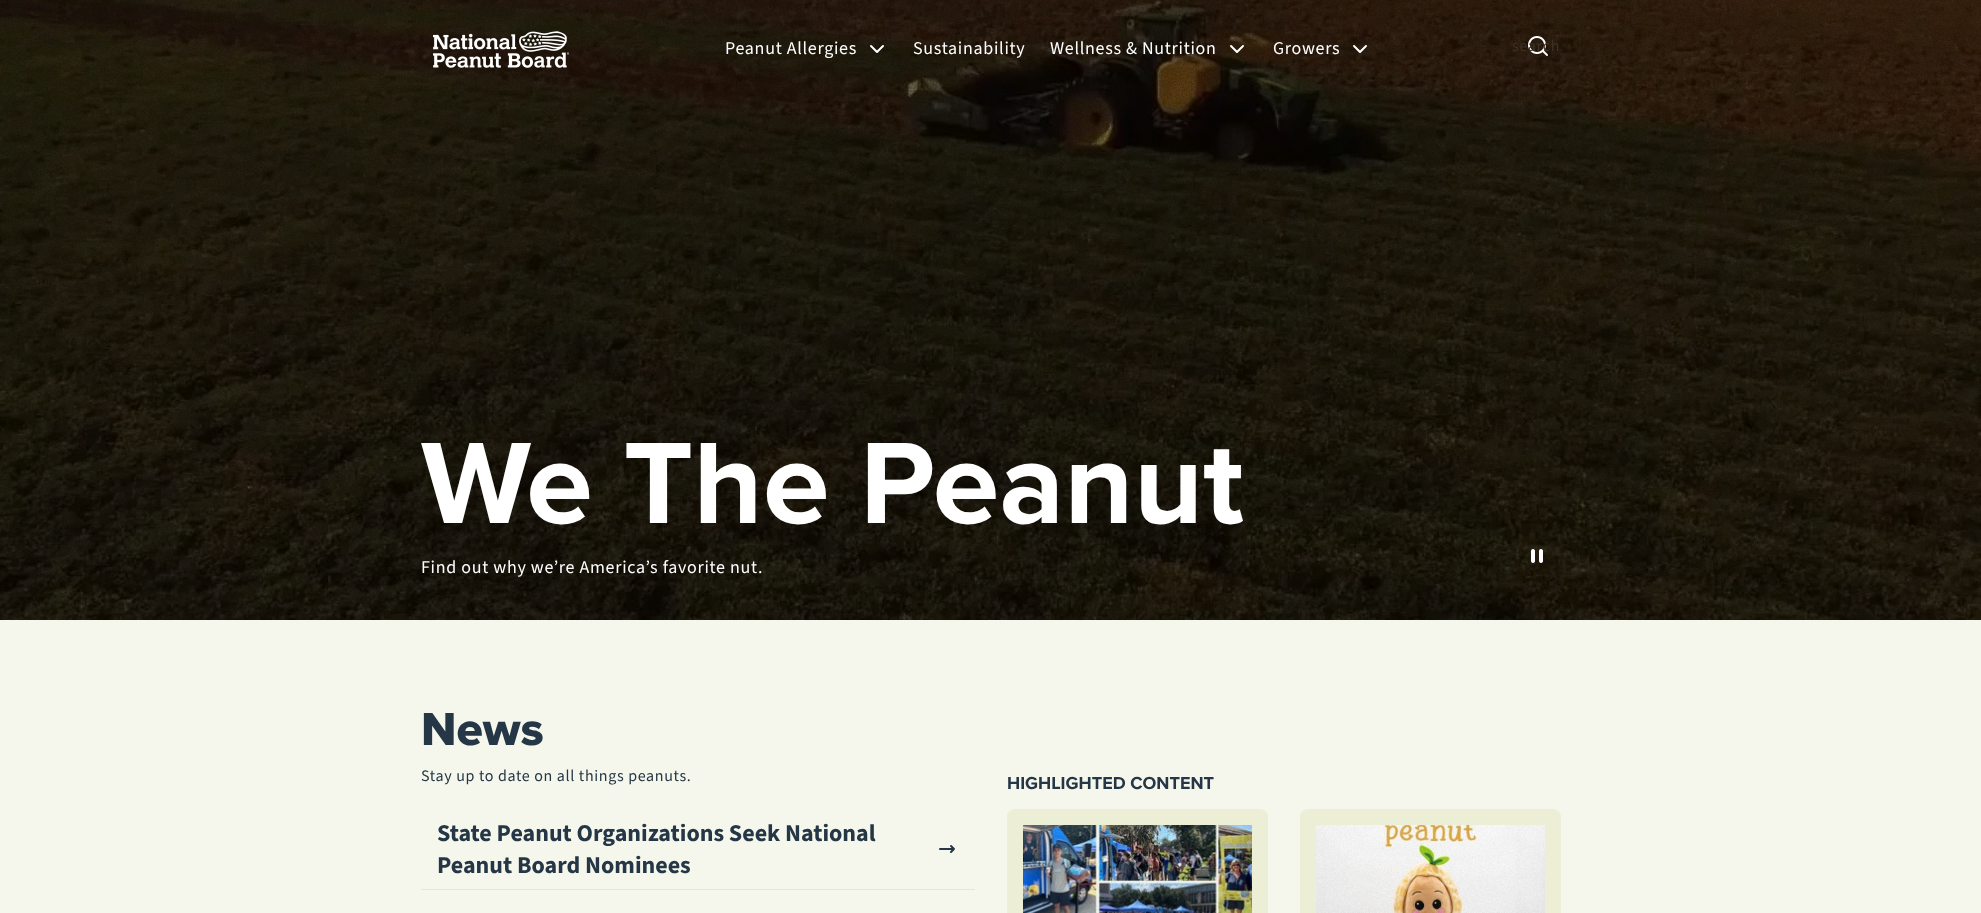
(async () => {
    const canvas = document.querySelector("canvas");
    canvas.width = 1981;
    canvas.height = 913;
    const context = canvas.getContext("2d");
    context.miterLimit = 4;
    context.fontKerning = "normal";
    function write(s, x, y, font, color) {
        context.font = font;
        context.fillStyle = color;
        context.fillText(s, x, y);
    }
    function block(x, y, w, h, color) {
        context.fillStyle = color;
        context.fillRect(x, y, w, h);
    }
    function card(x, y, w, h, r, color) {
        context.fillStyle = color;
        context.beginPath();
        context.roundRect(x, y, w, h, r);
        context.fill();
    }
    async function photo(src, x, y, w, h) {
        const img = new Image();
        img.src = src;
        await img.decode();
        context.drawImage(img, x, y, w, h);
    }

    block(0, 0, 1981, 913, "rgb(246, 247, 236)");
    await photo("media/3.png", 0, 0, 1981, 620);
    await photo("media/4.png", 0, 0, 1981, 620);
    await photo("media/1.png", 433, 31, 136, 37);
    context.letterSpacing = "0.7px";
    write("Peanut Allergies", 725, 54, "18px 'Source Sans 3'", "rgb(255, 255, 255)");
    context.beginPath();
    context.moveTo(871, 46);
    context.lineTo(877, 52);
    context.lineTo(883, 46);
    context.strokeStyle = "rgb(255, 255, 255)";
    context.lineWidth = 2;
    context.lineCap = "round";
    context.lineJoin = "round";
    context.stroke();
    write("Sustainability", 913, 54, "18px 'Source Sans 3'", "rgb(255, 255, 255)");
    write("Wellness & Nutrition", 1050, 54, "18px 'Source Sans 3'", "rgb(255, 255, 255)");
    context.beginPath();
    context.moveTo(1231, 46);
    context.lineTo(1237, 52);
    context.lineTo(1243, 46);
    context.stroke();
    write("Growers", 1273, 54, "18px 'Source Sans 3'", "rgb(255, 255, 255)");
    context.beginPath();
    context.moveTo(1354, 46);
    context.lineTo(1360, 52);
    context.lineTo(1366, 46);
    context.stroke();
    await photo("media/2.png", 1528, 36, 20, 20);
    write("search", 1512, 51, "16px 'Source Sans 3'", "rgb(62, 49, 37)");
    context.letterSpacing = "0px";
    write("We The Peanut", 421, 523, "bold 120px Proxima Nova", "rgb(255, 255, 255)");
    context.letterSpacing = "0.7px";
    write("Find out why we’re America’s favorite nut.", 421, 573, "18px 'Source Sans 3'", "rgb(255, 255, 255)");
    await photo("media/5.png", 1531, 549, 12, 14);
    context.letterSpacing = "0px";
    write("News", 421, 745, "800 48px Proxima Nova", "rgb(37, 55, 70)");
    context.letterSpacing = "0.65px";
    write("Stay up to date on all things peanuts.", 421, 781, "16px 'Source Sans 3'", "rgb(37, 55, 70)");
    context.letterSpacing = "0px";
    write("HIGHLIGHTED CONTENT", 1007, 789, "bold 18px Proxima Nova", "rgb(37, 55, 70)");
    card(1007, 809, 261, 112, 8, "rgb(236, 238, 214)");
    await photo("media/6.png", 1023, 825, 229, 88);
    await photo("media/7.png", 1023, 825, 229, 88);
    card(1300, 809, 261, 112, 8, "rgb(236, 238, 214)");
    await photo("media/8.png", 1316, 825, 229, 88);
    await photo("media/9.png", 1316, 825, 229, 88);
    block(421, 889, 554, 1, "rgb(235, 229, 208)");
    write("State Peanut Organizations Seek National", 437, 841, "bold 24px 'Source Sans 3'", "rgb(37, 55, 70)");
    write("Peanut Board Nominees", 437, 873, "bold 24px 'Source Sans 3'", "rgb(37, 55, 70)");
    context.beginPath();
    context.moveTo(940, 849);
    context.lineTo(954, 849);
    context.moveTo(951, 846);
    context.lineTo(954, 849);
    context.lineTo(951, 852);
    context.strokeStyle = "rgb(37, 55, 70)";
    context.stroke();
})();
